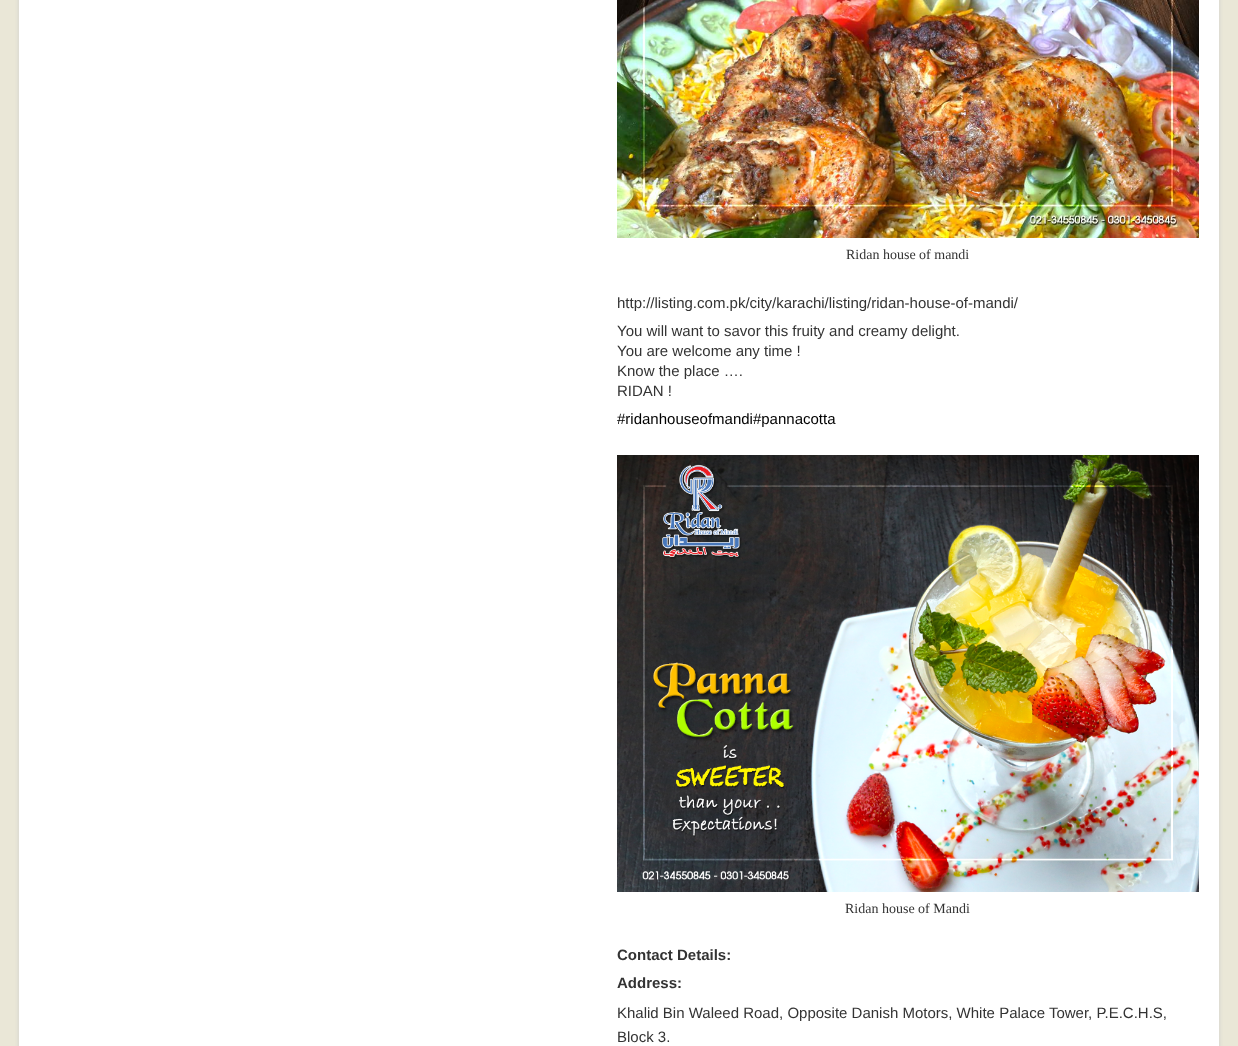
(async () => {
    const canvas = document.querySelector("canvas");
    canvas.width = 1238;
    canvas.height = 1046;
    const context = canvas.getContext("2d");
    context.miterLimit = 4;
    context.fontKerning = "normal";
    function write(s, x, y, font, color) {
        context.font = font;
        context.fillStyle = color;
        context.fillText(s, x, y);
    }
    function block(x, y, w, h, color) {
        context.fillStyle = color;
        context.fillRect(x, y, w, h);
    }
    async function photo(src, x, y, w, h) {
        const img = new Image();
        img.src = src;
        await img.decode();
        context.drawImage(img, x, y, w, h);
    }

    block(0, 0, 1238, 1046, "rgb(234, 231, 215)");
    context.fillStyle = "rgb(205, 205, 205)";
    context.filter = "blur(2px)";
    context.beginPath();
    context.rect(19, -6, 1200, 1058);
    context.fill();
    context.filter = "none";
    block(19, 0, 1200, 1046, "rgb(255, 255, 255)");
    await photo("media/1.png", 617, 0, 582, 238);
    write("Ridan house of mandi", 846, 259, "14px Liberation Serif", "rgb(51, 51, 51)");
    write("http://listing.com.pk/city/karachi/listing/ridan-house-of-mandi/", 617, 308, "15px Liberation Sans", "rgb(51, 51, 51)");
    write("You will want to savor this fruity and creamy delight.", 617, 336, "15px Liberation Sans", "rgb(51, 51, 51)");
    write("You are welcome any time !", 617, 356, "15px Liberation Sans", "rgb(51, 51, 51)");
    write("Know the place ….", 617, 376, "15px Liberation Sans", "rgb(51, 51, 51)");
    write("RIDAN !", 617, 396, "15px Liberation Sans", "rgb(51, 51, 51)");
    write("#ridanhouseofmandi#pannacotta", 617, 424, "15px Liberation Sans", "rgb(0, 0, 0)");
    await photo("media/2.png", 617, 455, 582, 437);
    write("Ridan house of Mandi", 845, 913, "14px Liberation Serif", "rgb(51, 51, 51)");
    write("Contact Details:", 617, 960, "bold 15px Liberation Sans", "rgb(51, 51, 51)");
    write("Address:", 617, 988, "bold 15px Liberation Sans", "rgb(51, 51, 51)");
    write("Khalid Bin Waleed Road, Opposite Danish Motors, White Palace Tower, P.E.C.H.S,", 617, 1018, "15px Liberation Sans", "rgb(51, 51, 51)");
    write("Block 3.", 617, 1042, "15px Liberation Sans", "rgb(51, 51, 51)");
})();
